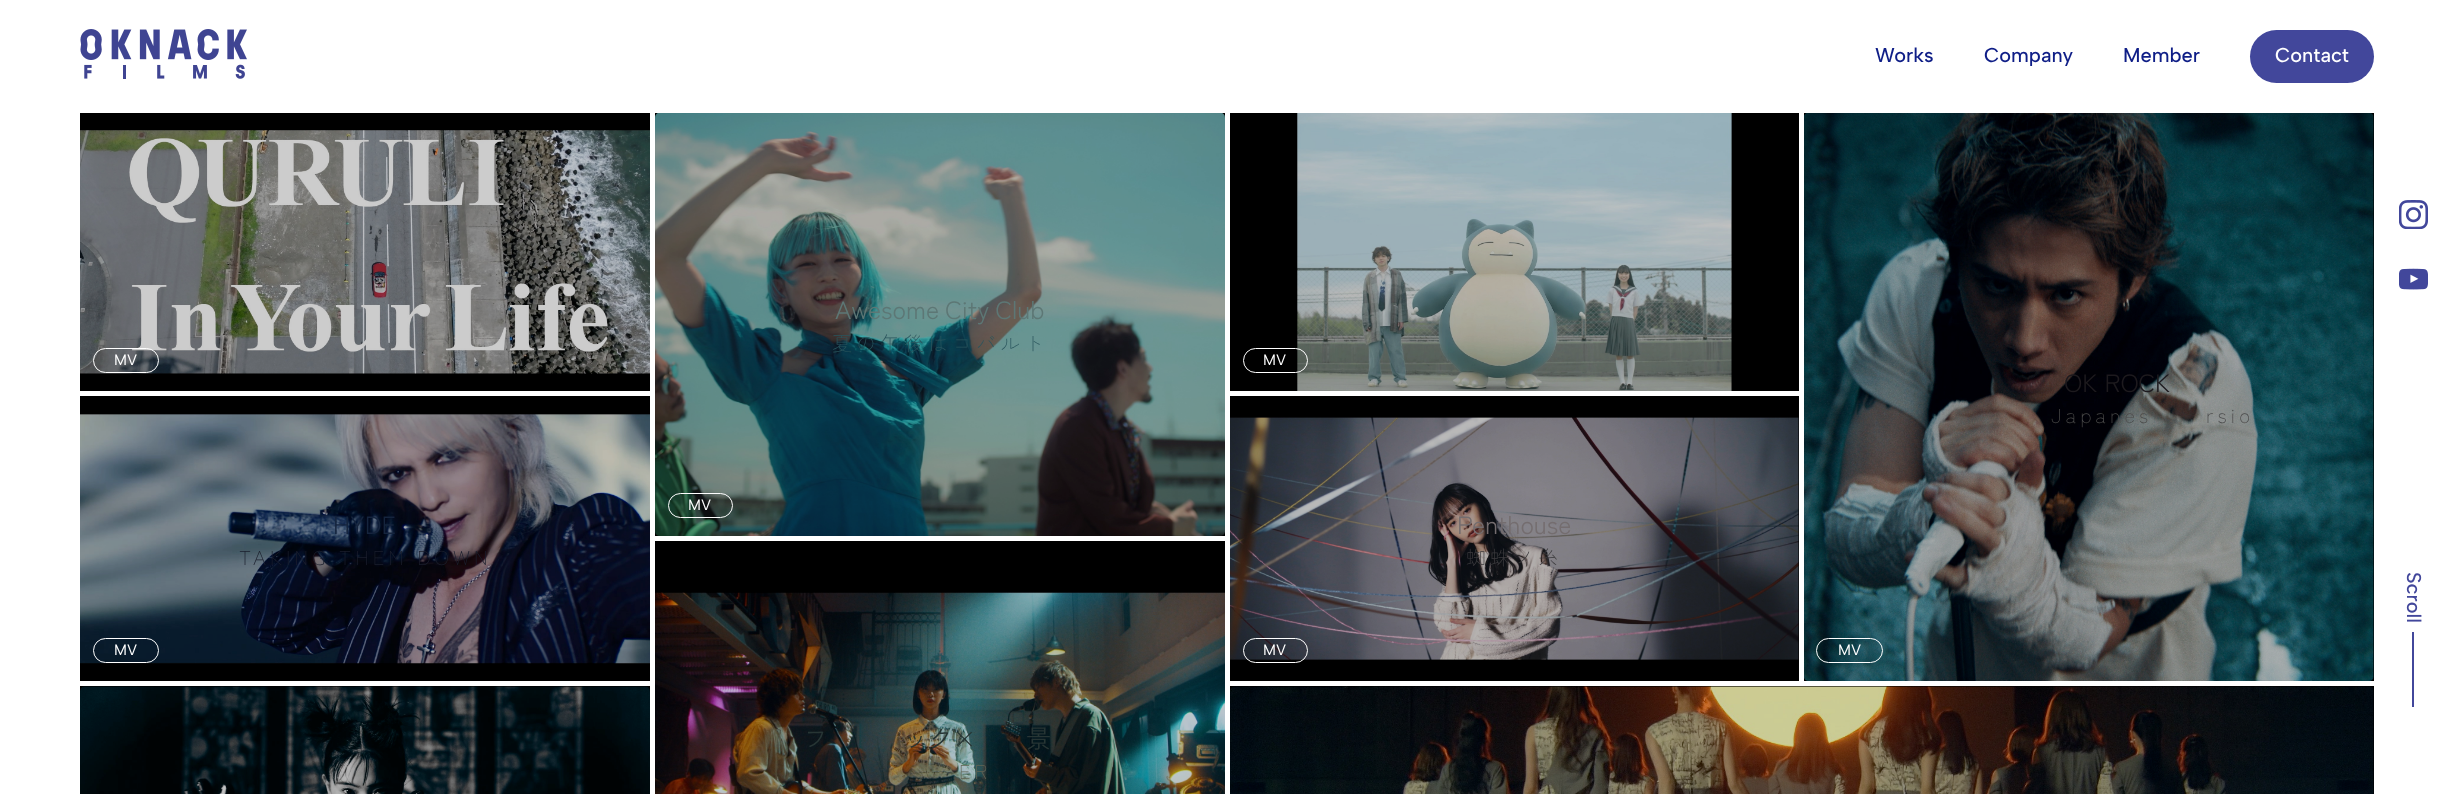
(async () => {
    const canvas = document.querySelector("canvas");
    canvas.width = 2453;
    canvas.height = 794;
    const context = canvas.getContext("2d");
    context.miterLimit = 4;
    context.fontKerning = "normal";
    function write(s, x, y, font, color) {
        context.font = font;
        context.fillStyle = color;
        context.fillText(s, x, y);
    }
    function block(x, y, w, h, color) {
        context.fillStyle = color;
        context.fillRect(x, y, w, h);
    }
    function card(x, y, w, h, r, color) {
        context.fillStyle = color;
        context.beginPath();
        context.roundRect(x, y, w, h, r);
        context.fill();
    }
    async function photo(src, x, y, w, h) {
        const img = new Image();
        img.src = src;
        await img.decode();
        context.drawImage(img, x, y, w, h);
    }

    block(0, 0, 2453, 794, "rgb(255, 255, 255)");
    await photo("media/1.png", 80, 29, 167, 50);
    write("Works", 1875, 62, "500 20px Albert Sans", "rgb(15, 30, 135)");
    write("Company", 1984, 62, "500 20px Albert Sans", "rgb(15, 30, 135)");
    write("Member", 2123, 62, "500 20px Albert Sans", "rgb(15, 30, 135)");
    card(2250, 30, 124, 53, 26.5, "rgb(66, 71, 155)");
    write("Contact", 2275, 62, "500 20px Albert Sans", "rgb(255, 255, 255)");
    await photo("media/2.png", 2399, 200, 29, 29);
    await photo("media/3.png", 2399, 268, 29, 22);
    block(80, 113, 570, 278, "rgb(0, 0, 0)");
    await photo("media/4.png", 80, 113, 570, 261);
    context.beginPath();
    context.roundRect(93.5, 348.5, 65, 24, 12);
    context.strokeStyle = "rgb(255, 255, 255)";
    context.stroke();
    write("MV", 114, 365, "15px Albert Sans", "rgb(255, 255, 255)");
    block(655, 113, 570, 423, "rgb(0, 0, 0)");
    await photo("media/5.png", 655, 113, 570, 423);
    context.wordSpacing = "-1px";
    write("Awesome City Club", 835, 319, "25px Zen Kaku Gothic New", "rgb(93, 119, 117)");
    context.letterSpacing = "4px";
    context.wordSpacing = "0px";
    write("夏の午後はコバルト", 832, 351, "300 20px Zen Kaku Gothic New", "rgb(42, 85, 93)");
    context.beginPath();
    context.roundRect(668.5, 493.5, 64, 24, 12);
    context.stroke();
    context.letterSpacing = "0px";
    write("MV", 688, 510, "15px Albert Sans", "rgb(255, 255, 255)");
    block(1230, 113, 569, 278, "rgb(0, 0, 0)");
    await photo("media/6.png", 1233, 113, 563, 278);
    context.beginPath();
    context.roundRect(1243.5, 348.5, 64, 24, 12);
    context.stroke();
    write("MV", 1263, 365, "15px Albert Sans", "rgb(255, 255, 255)");
    block(80, 396, 570, 285, "rgb(0, 0, 0)");
    await photo("media/7.png", 80, 414, 570, 250);
    write("HYDE", 333, 534, "25px Zen Kaku Gothic New", "rgb(21, 36, 61)");
    context.letterSpacing = "4px";
    write("TAKING THEM DOWN", 239, 565, "300 20px Zen Kaku Gothic New", "rgb(27, 31, 45)");
    context.beginPath();
    context.roundRect(93.5, 638.5, 65, 24, 12);
    context.stroke();
    context.letterSpacing = "0px";
    write("MV", 114, 655, "15px Albert Sans", "rgb(255, 255, 255)");
    block(1230, 396, 569, 285, "rgb(0, 0, 0)");
    await photo("media/8.png", 1230, 417, 569, 243);
    write("Penthouse", 1457, 534, "25px Zen Kaku Gothic New", "rgb(116, 109, 111)");
    context.letterSpacing = "4px";
    write("蜘蛛ノ糸", 1466, 565, "300 20px Zen Kaku Gothic New", "rgb(60, 59, 62)");
    context.beginPath();
    context.roundRect(1243.5, 638.5, 64, 24, 12);
    context.stroke();
    context.letterSpacing = "0px";
    write("MV", 1263, 655, "15px Albert Sans", "rgb(255, 255, 255)");
    block(1804, 113, 570, 568, "rgb(0, 0, 0)");
    await photo("media/9.png", 1804, 113, 570, 568);
    write("OK ROCK", 2064, 392, "25px Zen Kaku Gothic New", "rgb(29, 26, 30)");
    context.letterSpacing = "4px";
    write("Japanes", 2051, 423, "300 20px Zen Kaku Gothic New", "rgb(74, 74, 74)");
    write("rsio", 2206, 423, "300 20px Zen Kaku Gothic New", "rgb(74, 74, 74)");
    context.beginPath();
    context.roundRect(1816.5, 638.5, 66, 24, 12);
    context.stroke();
    context.letterSpacing = "0px";
    write("MV", 1838, 655, "15px Albert Sans", "rgb(255, 255, 255)");
    block(80, 686, 570, 108, "rgb(0, 0, 0)");
    await photo("media/10.png", 80, 686, 570, 108);
    block(655, 541, 570, 253, "rgb(0, 0, 0)");
    await photo("media/11.png", 655, 592, 570, 202);
    write("フ", 803, 748, "25px Zen Kaku Gothic New", "rgb(39, 53, 52)");
    write("ック×", 903, 748, "25px Zen Kaku Gothic New", "rgb(39, 53, 52)");
    write("景", 1026, 748, "25px Zen Kaku Gothic New", "rgb(39, 53, 52)");
    context.letterSpacing = "4px";
    write("ER", 959, 779, "300 20px Zen Kaku Gothic New", "rgb(97, 101, 85)");
    block(1230, 686, 1144, 108, "rgb(0, 0, 0)");
    await photo("media/12.png", 1230, 686, 1144, 108);
    context.letterSpacing = "0px";
    context.font = "500 20px Albert Sans";
    context.fillStyle = "rgb(66, 71, 155)";
    context.save();
    context.translate(2407, 572);
    context.rotate(90 * Math.PI / 180);
    context.fillText("Scroll", 0, 0);
    context.restore();
    block(2412, 632, 2, 75, "rgb(66, 71, 155)");
})();
